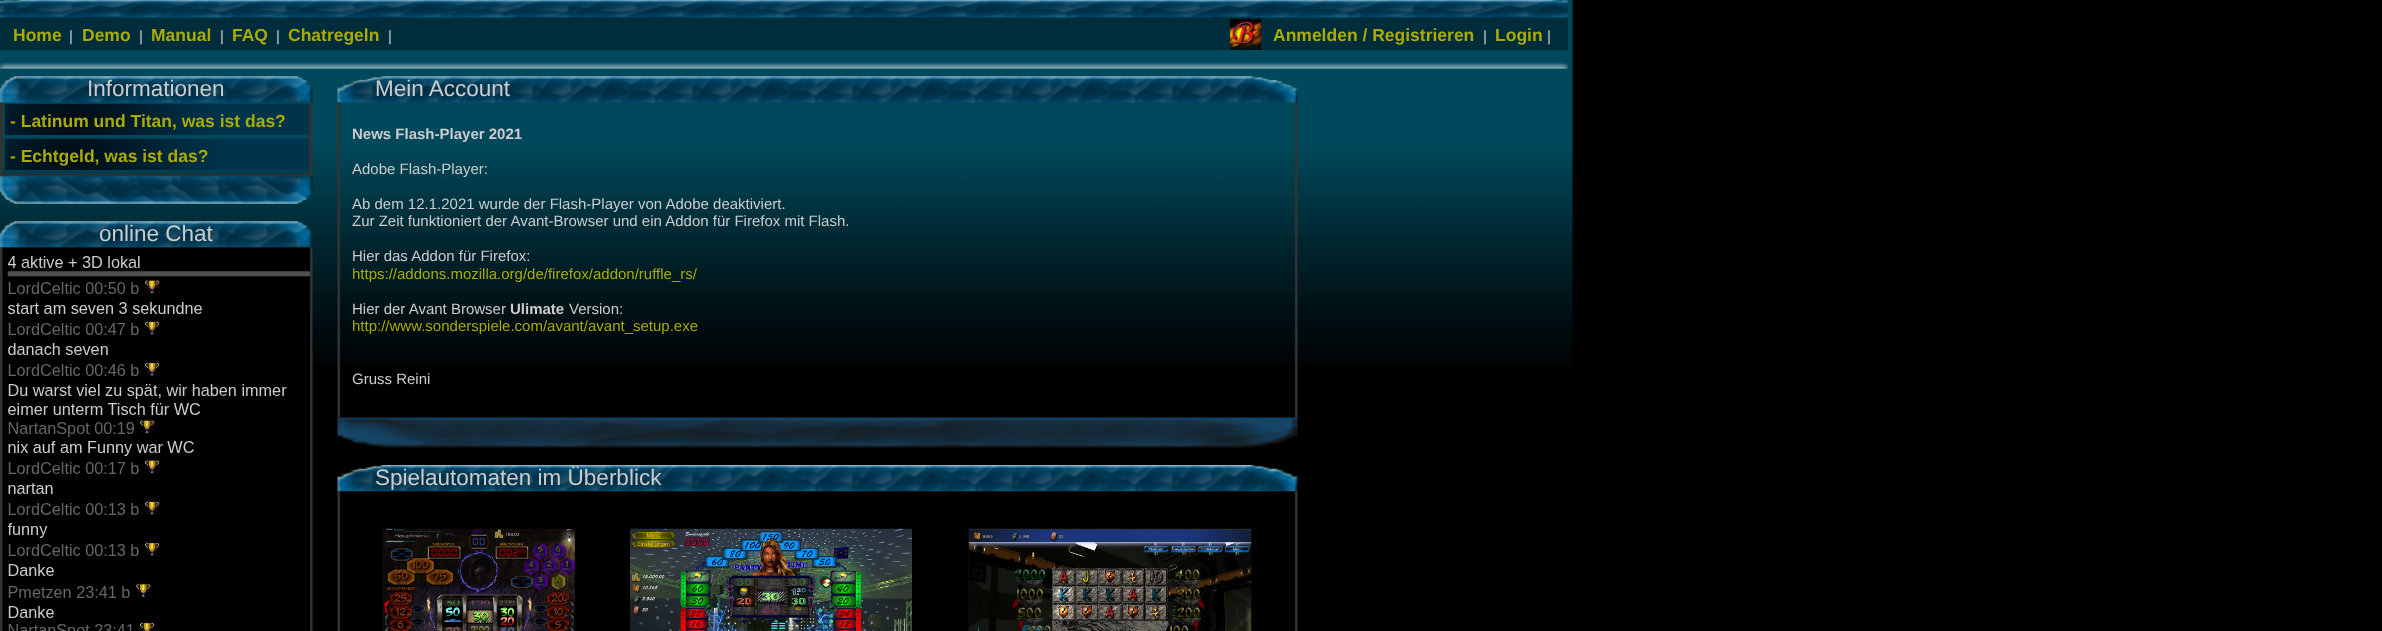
(async () => {
    const canvas = document.querySelector("canvas");
    canvas.width = 2382;
    canvas.height = 631;
    const context = canvas.getContext("2d");
    context.miterLimit = 4;
    context.fontKerning = "normal";
    function write(s, x, y, font, color) {
        context.font = font;
        context.fillStyle = color;
        context.fillText(s, x, y);
    }
    function block(x, y, w, h, color) {
        context.fillStyle = color;
        context.fillRect(x, y, w, h);
    }
    async function photo(src, x, y, w, h) {
        const img = new Image();
        img.src = src;
        await img.decode();
        context.drawImage(img, x, y, w, h);
    }

    block(0, 0, 2382, 631, "rgb(0, 0, 0)");
    await photo("media/1.png", 0, 0, 1573, 366);
    await photo("media/2.png", 0, 0, 1568, 19);
    block(0, 19, 1230, 31, "rgb(0, 45, 60)");
    write("Home", 13, 41, "bold 17.5px Liberation Sans", "rgb(170, 170, 0)");
    write("|", 69, 41, "15px Liberation Sans", "rgb(204, 204, 204)");
    write("Demo", 82, 41, "bold 17.5px Liberation Sans", "rgb(170, 170, 0)");
    write("|", 139, 41, "15px Liberation Sans", "rgb(204, 204, 204)");
    write("Manual", 151, 41, "bold 17.5px Liberation Sans", "rgb(170, 170, 0)");
    write("|", 220, 41, "15px Liberation Sans", "rgb(204, 204, 204)");
    write("FAQ", 232, 41, "bold 17.5px Liberation Sans", "rgb(170, 170, 0)");
    write("|", 276, 41, "15px Liberation Sans", "rgb(204, 204, 204)");
    write("Chatregeln", 288, 41, "bold 17.5px Liberation Sans", "rgb(170, 170, 0)");
    write("|", 388, 41, "15px Liberation Sans", "rgb(204, 204, 204)");
    block(1261, 19, 307, 31, "rgb(0, 45, 60)");
    await photo("media/3.png", 1230, 18, 32, 32);
    write("Anmelden / Registrieren", 1273, 41, "bold 17.5px Liberation Sans", "rgb(170, 170, 0)");
    write("|", 1483, 41, "15px Liberation Sans", "rgb(204, 204, 204)");
    write("Login", 1495, 41, "bold 17.5px Liberation Sans", "rgb(170, 170, 0)");
    write("|", 1547, 41, "15px Liberation Sans", "rgb(204, 204, 204)");
    await photo("media/4.png", 0, 62, 1568, 7);
    await photo("media/5.png", 0, 76, 313, 27);
    write("Informationen", 87, 96, "22.5px Liberation Sans", "rgb(204, 204, 204)");
    await photo("media/6.png", 0, 102, 313, 72);
    await photo("media/7.png", 5, 103, 304, 32);
    write("- Latinum und Titan, was ist das?", 10, 127, "bold 17.5px Liberation Sans", "rgb(170, 170, 0)");
    await photo("media/8.png", 5, 138, 304, 32);
    write("- Echtgeld, was ist das?", 10, 162, "bold 17.5px Liberation Sans", "rgb(170, 170, 0)");
    await photo("media/9.png", 0, 173, 313, 31);
    await photo("media/10.png", 0, 221, 313, 27);
    write("online Chat", 99, 241, "22.5px Liberation Sans", "rgb(204, 204, 204)");
    await photo("media/11.png", 0, 247, 313, 384);
    await photo("media/12.png", 2, 247, 308, 384);
    await photo("media/13.png", 337, 76, 961, 27);
    write("Mein Account", 375, 96, "22.5px Liberation Sans", "rgb(204, 204, 204)");
    await photo("media/14.png", 337, 102, 961, 316);
    write("News Flash-Player 2021", 352, 139, "bold 15px Liberation Sans", "rgb(204, 204, 204)");
    write("Adobe Flash-Player:", 352, 174, "15px Liberation Sans", "rgb(204, 204, 204)");
    write("Ab dem 12.1.2021 wurde der Flash-Player von Adobe deaktiviert.", 352, 209, "15px Liberation Sans", "rgb(204, 204, 204)");
    write("Zur Zeit funktioniert der Avant-Browser und ein Addon für Firefox mit Flash.", 352, 226, "15px Liberation Sans", "rgb(204, 204, 204)");
    write("Hier das Addon für Firefox:", 352, 261, "15px Liberation Sans", "rgb(204, 204, 204)");
    write("https://addons.mozilla.org/de/firefox/addon/ruffle_rs/", 352, 279, "15px Liberation Sans", "rgb(170, 170, 0)");
    write("Hier der Avant Browser", 352, 314, "15px Liberation Sans", "rgb(204, 204, 204)");
    write("Ulimate", 510, 314, "bold 15px Liberation Sans", "rgb(204, 204, 204)");
    write("Version:", 569, 314, "15px Liberation Sans", "rgb(204, 204, 204)");
    write("http://www.sonderspiele.com/avant/avant_setup.exe", 352, 331, "15px Liberation Sans", "rgb(170, 170, 0)");
    write("Gruss Reini", 352, 384, "15px Liberation Sans", "rgb(204, 204, 204)");
    await photo("media/15.png", 337, 417, 961, 31);
    await photo("media/16.png", 337, 465, 961, 27);
    write("Spielautomaten im Überblick", 375, 485, "22.5px Liberation Sans", "rgb(204, 204, 204)");
    await photo("media/17.png", 337, 491, 961, 140);
    await photo("media/18.png", 382, 528, 193, 103);
    await photo("media/19.png", 630, 528, 283, 103);
    await photo("media/20.png", 968, 528, 284, 103);
})();
